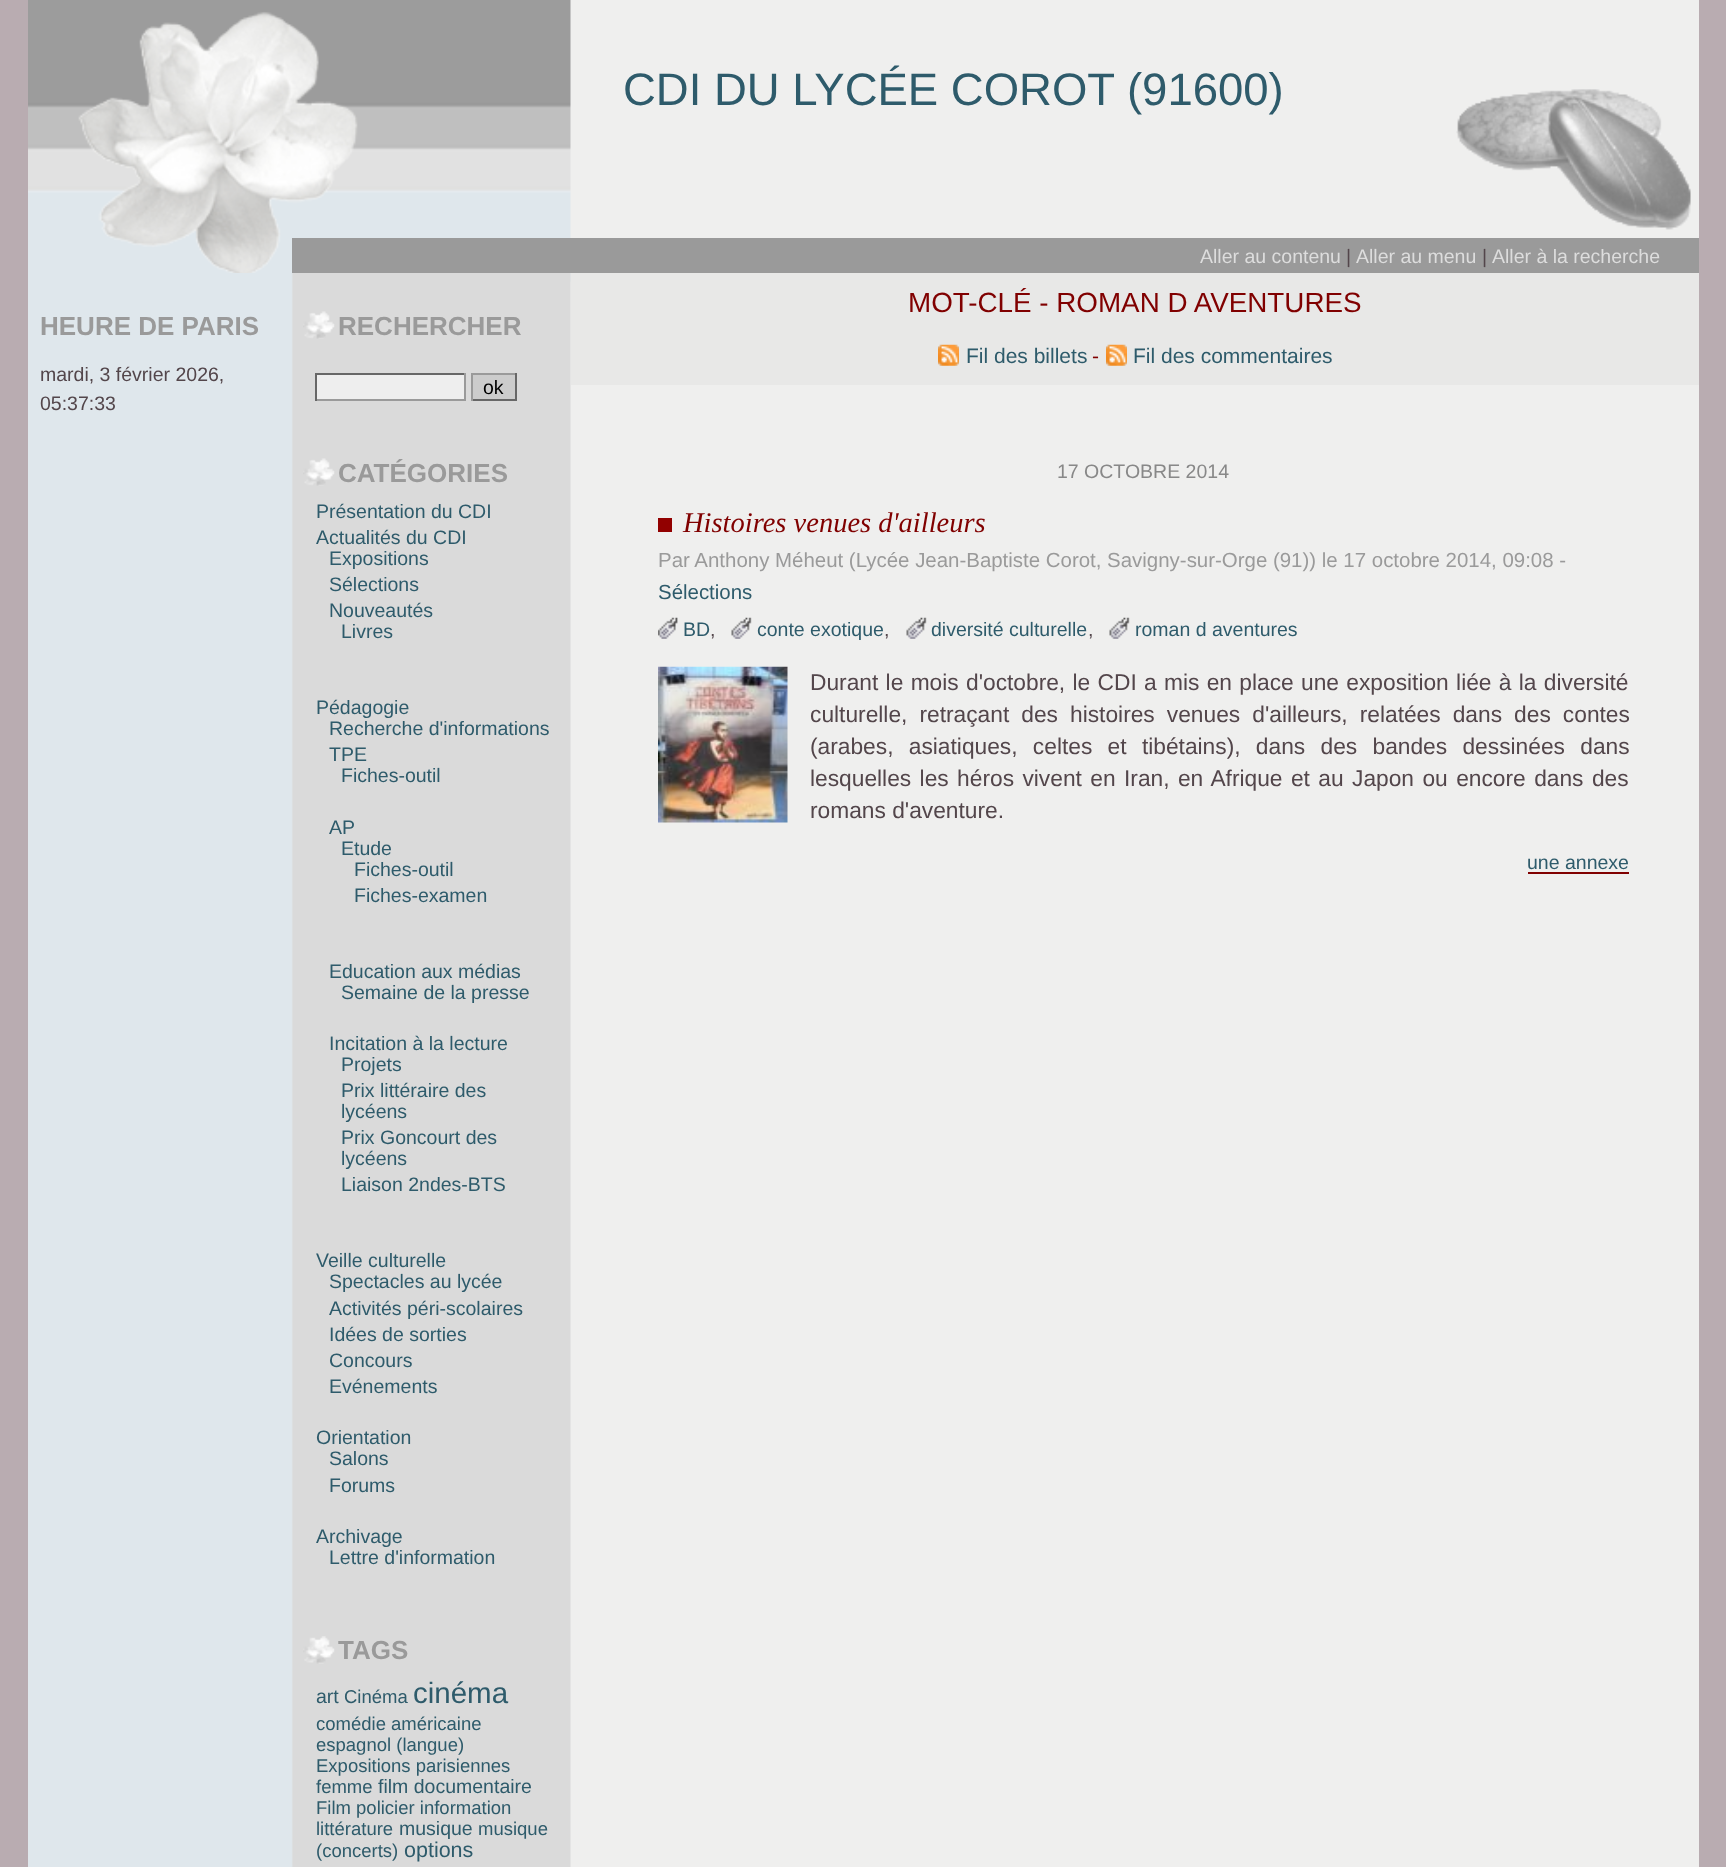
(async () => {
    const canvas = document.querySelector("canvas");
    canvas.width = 1726;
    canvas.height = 1867;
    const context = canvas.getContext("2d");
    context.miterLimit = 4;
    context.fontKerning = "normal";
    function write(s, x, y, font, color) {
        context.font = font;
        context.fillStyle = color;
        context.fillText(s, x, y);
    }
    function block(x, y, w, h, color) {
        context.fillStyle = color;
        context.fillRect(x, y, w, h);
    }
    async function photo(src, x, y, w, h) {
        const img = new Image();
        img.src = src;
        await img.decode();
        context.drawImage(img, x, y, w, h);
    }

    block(0, 0, 1726, 1867, "rgb(185, 172, 177)");
    block(570, 0, 1129, 1867, "rgb(239, 239, 238)");
    await photo("media/1.png", 28, 0, 543, 282);
    await photo("media/2.png", 1456, 89, 235, 141);
    write("CDI DU LYCÉE COROT (91600)", 623, 105, "45.5px Liberation Sans", "rgb(46, 91, 107)");
    block(292, 238, 1407, 35, "rgb(154, 154, 154)");
    write("Aller au contenu", 1200, 263, "19.5px Liberation Sans", "rgb(221, 221, 221)");
    write("|", 1346, 263, "19.5px Liberation Sans", "rgb(83, 70, 75)");
    write("Aller au menu", 1356, 263, "19.5px Liberation Sans", "rgb(221, 221, 221)");
    write("|", 1482, 263, "19.5px Liberation Sans", "rgb(83, 70, 75)");
    write("Aller à la recherche", 1492, 263, "19.5px Liberation Sans", "rgb(221, 221, 221)");
    await photo("media/3.png", 28, 273, 543, 1594);
    write("HEURE DE PARIS", 40, 335, "bold 26px Liberation Sans", "rgb(154, 154, 154)");
    write("mardi, 3 février 2026,", 40, 381, "19.5px Liberation Sans", "rgb(83, 70, 75)");
    write("05:37:33", 40, 410, "19.5px Liberation Sans", "rgb(83, 70, 75)");
    await photo("media/4.png", 303, 311, 32, 28);
    write("RECHERCHER", 338, 335, "bold 26px Liberation Sans", "rgb(154, 154, 154)");
    block(317, 375, 147, 24, "rgb(238, 238, 238)");
    block(315, 373, 151, 2, "rgb(103, 103, 103)");
    block(464, 373, 2, 28, "rgb(154, 154, 154)");
    block(315, 399, 151, 2, "rgb(154, 154, 154)");
    block(315, 373, 2, 28, "rgb(103, 103, 103)");
    block(473, 375, 42, 24, "rgb(204, 204, 204)");
    block(471, 373, 45, 2, "rgb(154, 154, 154)");
    block(515, 373, 2, 28, "rgb(103, 103, 103)");
    block(471, 399, 45, 2, "rgb(103, 103, 103)");
    block(471, 373, 2, 28, "rgb(154, 154, 154)");
    write("ok", 483, 394, "19.5px Liberation Sans", "rgb(0, 0, 0)");
    await photo("media/4.png", 303, 458, 32, 28);
    write("CATÉGORIES", 338, 482, "bold 26px Liberation Sans", "rgb(154, 154, 154)");
    write("Présentation du CDI", 316, 518, "19.5px Liberation Sans", "rgb(46, 91, 107)");
    write("Actualités du CDI", 316, 544, "19.5px Liberation Sans", "rgb(46, 91, 107)");
    write("Expositions", 329, 565, "19.5px Liberation Sans", "rgb(46, 91, 107)");
    write("Sélections", 329, 591, "19.5px Liberation Sans", "rgb(46, 91, 107)");
    write("Nouveautés", 329, 617, "19.5px Liberation Sans", "rgb(46, 91, 107)");
    write("Livres", 341, 638, "19.5px Liberation Sans", "rgb(46, 91, 107)");
    write("Pédagogie", 316, 714, "19.5px Liberation Sans", "rgb(46, 91, 107)");
    write("Recherche d'informations", 329, 735, "19.5px Liberation Sans", "rgb(46, 91, 107)");
    write("TPE", 329, 761, "19.5px Liberation Sans", "rgb(46, 91, 107)");
    write("Fiches-outil", 341, 782, "19.5px Liberation Sans", "rgb(46, 91, 107)");
    write("AP", 329, 834, "19.5px Liberation Sans", "rgb(46, 91, 107)");
    write("Etude", 341, 855, "19.5px Liberation Sans", "rgb(46, 91, 107)");
    write("Fiches-outil", 354, 876, "19.5px Liberation Sans", "rgb(46, 91, 107)");
    write("Fiches-examen", 354, 902, "19.5px Liberation Sans", "rgb(46, 91, 107)");
    write("Education aux médias", 329, 978, "19.5px Liberation Sans", "rgb(46, 91, 107)");
    write("Semaine de la presse", 341, 999, "19.5px Liberation Sans", "rgb(46, 91, 107)");
    write("Incitation à la lecture", 329, 1050, "19.5px Liberation Sans", "rgb(46, 91, 107)");
    write("Projets", 341, 1071, "19.5px Liberation Sans", "rgb(46, 91, 107)");
    write("Prix littéraire des", 341, 1097, "19.5px Liberation Sans", "rgb(46, 91, 107)");
    write("lycéens", 341, 1118, "19.5px Liberation Sans", "rgb(46, 91, 107)");
    write("Prix Goncourt des", 341, 1144, "19.5px Liberation Sans", "rgb(46, 91, 107)");
    write("lycéens", 341, 1165, "19.5px Liberation Sans", "rgb(46, 91, 107)");
    write("Liaison 2ndes-BTS", 341, 1191, "19.5px Liberation Sans", "rgb(46, 91, 107)");
    write("Veille culturelle", 316, 1267, "19.5px Liberation Sans", "rgb(46, 91, 107)");
    write("Spectacles au lycée", 329, 1288, "19.5px Liberation Sans", "rgb(46, 91, 107)");
    write("Activités péri-scolaires", 329, 1315, "19.5px Liberation Sans", "rgb(46, 91, 107)");
    write("Idées de sorties", 329, 1341, "19.5px Liberation Sans", "rgb(46, 91, 107)");
    write("Concours", 329, 1367, "19.5px Liberation Sans", "rgb(46, 91, 107)");
    write("Evénements", 329, 1393, "19.5px Liberation Sans", "rgb(46, 91, 107)");
    write("Orientation", 316, 1444, "19.5px Liberation Sans", "rgb(46, 91, 107)");
    write("Salons", 329, 1465, "19.5px Liberation Sans", "rgb(46, 91, 107)");
    write("Forums", 329, 1492, "19.5px Liberation Sans", "rgb(46, 91, 107)");
    write("Archivage", 316, 1543, "19.5px Liberation Sans", "rgb(46, 91, 107)");
    write("Lettre d'information", 329, 1564, "19.5px Liberation Sans", "rgb(46, 91, 107)");
    await photo("media/5.png", 303, 1636, 32, 28);
    write("TAGS", 338, 1659, "bold 26px Liberation Sans", "rgb(154, 154, 154)");
    write("art", 316, 1703, "19.5px Liberation Sans", "rgb(46, 91, 107)");
    write("Cinéma", 344, 1703, "18.5px Liberation Sans", "rgb(46, 91, 107)");
    write("cinéma", 413, 1703, "29.5px Liberation Sans", "rgb(46, 91, 107)");
    write("comédie américaine", 316, 1730, "18.5px Liberation Sans", "rgb(46, 91, 107)");
    write("espagnol (langue)", 316, 1751, "18.5px Liberation Sans", "rgb(46, 91, 107)");
    write("Expositions parisiennes", 316, 1772, "18.5px Liberation Sans", "rgb(46, 91, 107)");
    write("femme", 316, 1793, "18.5px Liberation Sans", "rgb(46, 91, 107)");
    write("film documentaire", 378, 1793, "19.5px Liberation Sans", "rgb(46, 91, 107)");
    write("Film policier information", 316, 1814, "18.5px Liberation Sans", "rgb(46, 91, 107)");
    write("littérature", 316, 1835, "18.5px Liberation Sans", "rgb(46, 91, 107)");
    write("musique", 399, 1835, "19.5px Liberation Sans", "rgb(46, 91, 107)");
    write("musique", 478, 1835, "18.5px Liberation Sans", "rgb(46, 91, 107)");
    write("(concerts)", 316, 1857, "18.5px Liberation Sans", "rgb(46, 91, 107)");
    write("options", 404, 1857, "21.5px Liberation Sans", "rgb(46, 91, 107)");
    block(571, 273, 1128, 112, "rgb(232, 232, 231)");
    write("MOT-CLÉ - ROMAN D AVENTURES", 908, 312, "27.8px Liberation Sans", "rgb(128, 0, 0)");
    await photo("media/6.png", 938, 344, 21, 22);
    write("Fil des billets", 966, 363, "21px Liberation Sans", "rgb(46, 91, 107)");
    write("-", 1092, 363, "21px Liberation Sans", "rgb(128, 0, 0)");
    await photo("media/6.png", 1106, 344, 21, 22);
    write("Fil des commentaires", 1133, 363, "21px Liberation Sans", "rgb(46, 91, 107)");
    write("17 OCTOBRE 2014", 1057, 478, "19.5px Liberation Sans", "rgb(136, 136, 136)");
    block(658, 518, 14, 14, "rgb(146, 0, 0)");
    write("Histoires venues d'ailleurs", 683, 532, "italic 28.5px Liberation Serif", "rgb(128, 0, 0)");
    write("Par Anthony Méheut (Lycée Jean-Baptiste Corot, Savigny-sur-Orge (91)) le 17 octobre 2014, 09:08 -", 658, 567, "20.45px Liberation Sans", "rgb(154, 154, 154)");
    write("Sélections", 658, 599, "20.45px Liberation Sans", "rgb(46, 91, 107)");
    await photo("media/7.png", 658, 617, 20, 22);
    write("BD", 683, 636, "19.5px Liberation Sans", "rgb(46, 91, 107)");
    write(",", 710, 636, "19.5px Liberation Sans", "rgb(83, 70, 75)");
    await photo("media/8.png", 731, 617, 21, 22);
    write("conte exotique", 757, 636, "19.5px Liberation Sans", "rgb(46, 91, 107)");
    write(",", 884, 636, "19.5px Liberation Sans", "rgb(83, 70, 75)");
    await photo("media/8.png", 906, 617, 21, 22);
    write("diversité culturelle", 931, 636, "19.5px Liberation Sans", "rgb(46, 91, 107)");
    write(",", 1088, 636, "19.5px Liberation Sans", "rgb(83, 70, 75)");
    await photo("media/9.png", 1109, 617, 21, 22);
    write("roman d aventures", 1135, 636, "19.5px Liberation Sans", "rgb(46, 91, 107)");
    await photo("media/10.png", 658, 666, 130, 157);
    context.wordSpacing = "1px";
    write("Durant le mois d'octobre, le CDI a mis en place une exposition liée à la diversité", 810, 690, "22.75px Liberation Sans", "rgb(83, 70, 75)");
    context.wordSpacing = "5.75px";
    write("culturelle, retraçant des histoires venues d'ailleurs, relatées dans des contes", 810, 722, "22.75px Liberation Sans", "rgb(83, 70, 75)");
    context.wordSpacing = "9px";
    write("(arabes, asiatiques, celtes et tibétains), dans des bandes dessinées dans", 810, 754, "22.75px Liberation Sans", "rgb(83, 70, 75)");
    context.wordSpacing = "2.1px";
    write("lesquelles les héros vivent en Iran, en Afrique et au Japon ou encore dans des", 810, 786, "22.75px Liberation Sans", "rgb(83, 70, 75)");
    context.wordSpacing = "0px";
    write("romans d'aventure.", 810, 818, "22.75px Liberation Sans", "rgb(83, 70, 75)");
    write("une annexe", 1527, 869, "19.5px Liberation Sans", "rgb(46, 91, 107)");
    block(1528, 872, 101, 2, "rgb(128, 0, 0)");
})();
